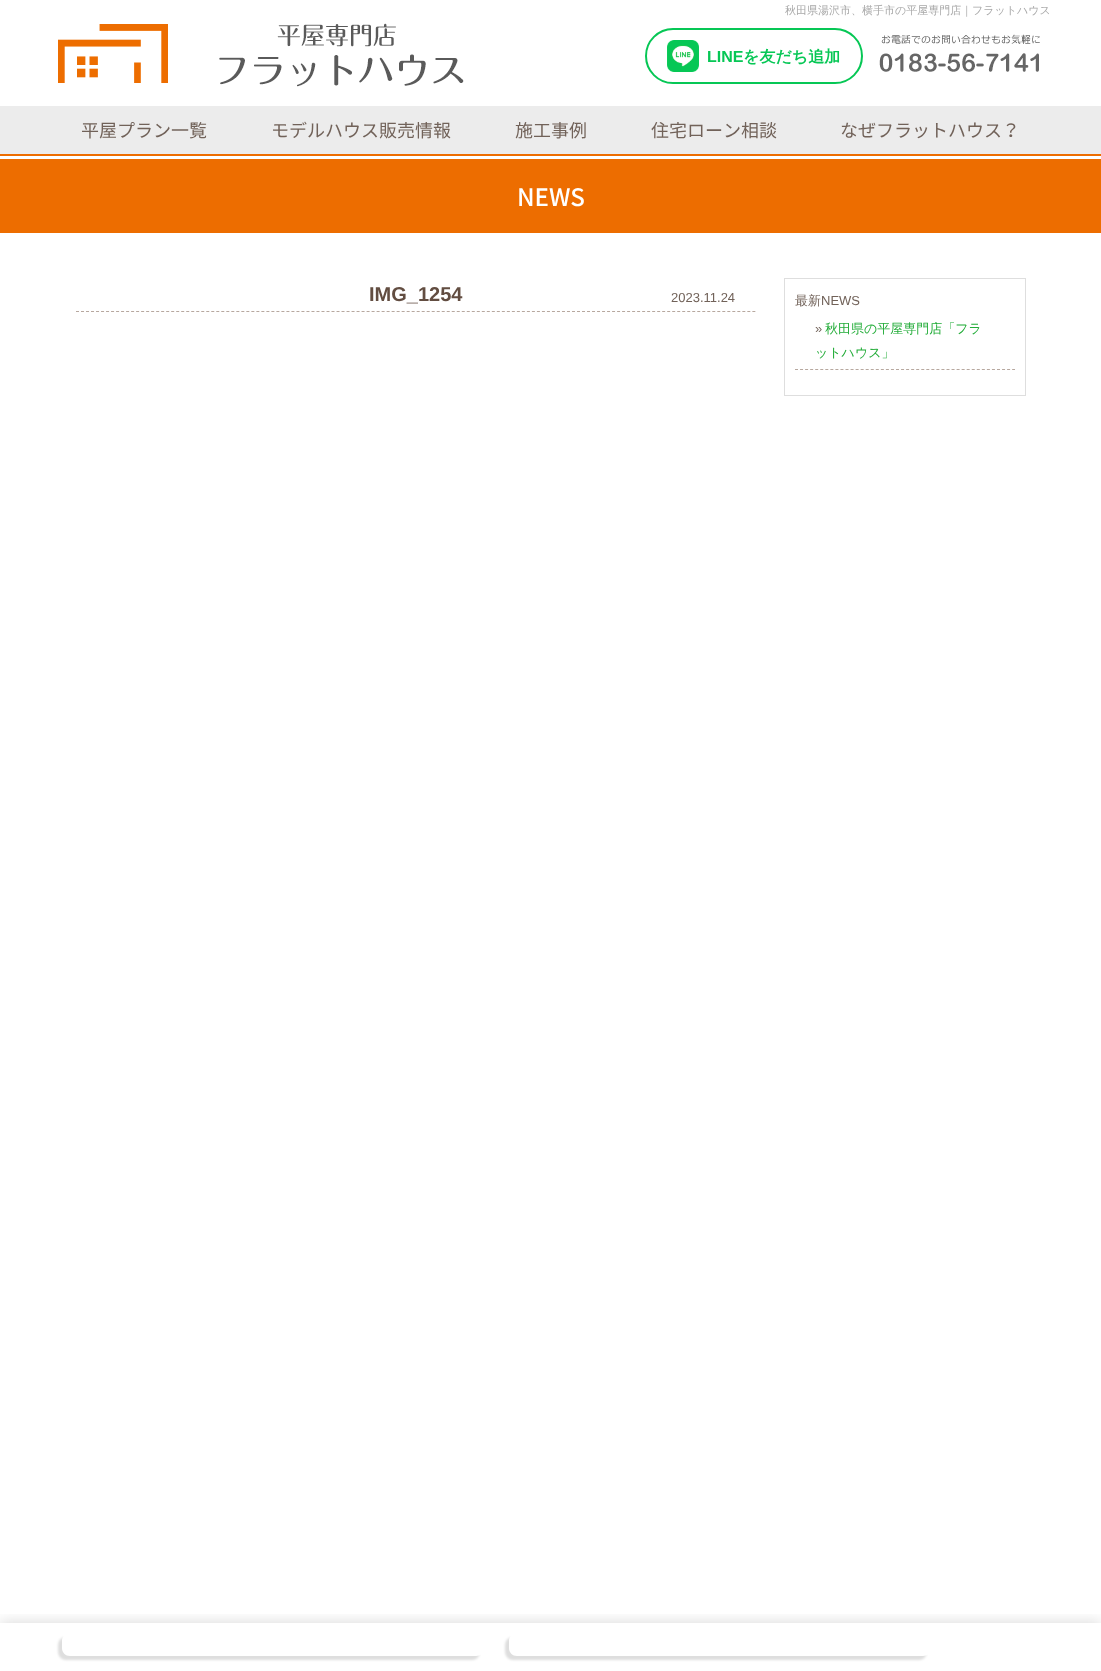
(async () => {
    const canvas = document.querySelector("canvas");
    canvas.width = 1101;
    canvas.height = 1671;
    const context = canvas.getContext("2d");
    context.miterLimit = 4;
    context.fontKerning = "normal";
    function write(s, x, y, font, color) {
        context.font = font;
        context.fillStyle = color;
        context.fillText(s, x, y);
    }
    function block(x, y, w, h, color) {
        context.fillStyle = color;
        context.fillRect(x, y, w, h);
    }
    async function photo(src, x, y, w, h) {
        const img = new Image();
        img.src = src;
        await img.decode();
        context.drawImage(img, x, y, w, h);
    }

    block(0, 0, 1101, 1671, "rgb(255, 255, 255)");
    await photo("media/1.png", 58, 23, 406, 64);
    write("秋田県湯沢市、横手市の平屋専門店｜フラットハウス", 785, 14, "500 11px WenQuanYi Zen Hei", "rgb(168, 168, 168)");
    context.beginPath();
    context.roundRect(646, 29, 216, 54, 27);
    context.strokeStyle = "rgb(6, 199, 85)";
    context.lineWidth = 2;
    context.stroke();
    await photo("media/2.png", 667, 40, 32, 32);
    write("LINE", 707, 62, "bold 16px Liberation Sans", "rgb(6, 199, 85)");
    write("を友だち追加", 743, 62, "bold 16px WenQuanYi Zen Hei", "rgb(6, 199, 85)");
    await photo("media/3.png", 879, 34, 161, 38);
    await photo("media/4.png", 0, 106, 1101, 50);
    write("平屋プラン一覧", 81, 137, "18px Noto Sans JP", "rgb(113, 98, 89)");
    write("モデルハウス販売情報", 271, 137, "18px Noto Sans JP", "rgb(113, 98, 89)");
    write("施工事例", 515, 137, "18px Noto Sans JP", "rgb(113, 98, 89)");
    write("住宅ローン相談", 651, 137, "18px Noto Sans JP", "rgb(113, 98, 89)");
    write("なぜフラットハウス？", 840, 137, "18px Noto Sans JP", "rgb(113, 98, 89)");
    block(0, 159, 1101, 74, "rgb(237, 109, 0)");
    write("NEWS", 517, 206, "500 24px Noto Sans JP", "rgb(255, 255, 255)");
    context.beginPath();
    context.moveTo(76, 311.5);
    context.lineTo(756, 311.5);
    context.strokeStyle = "rgb(183, 168, 159)";
    context.lineWidth = 1;
    context.setLineDash([3, 2.01]);
    context.stroke();
    write("IMG_1254", 369, 301, "bold 20px Liberation Sans", "rgb(98, 77, 65)");
    write("2023.11.24", 671, 302, "13px Liberation Sans", "rgb(113, 98, 89)");
    context.strokeStyle = "rgb(222, 222, 222)";
    context.setLineDash([]);
    context.strokeRect(784.5, 278.5, 241, 117);
    write("最新", 795, 305, "500 13px WenQuanYi Zen Hei", "rgb(113, 98, 89)");
    write("NEWS", 821, 305, "13px Liberation Sans", "rgb(113, 98, 89)");
    context.beginPath();
    context.moveTo(795, 369.5);
    context.lineTo(1015, 369.5);
    context.strokeStyle = "rgb(183, 168, 159)";
    context.setLineDash([3, 2.05]);
    context.stroke();
    write("»", 815, 333, "13px Liberation Sans", "rgb(113, 98, 89)");
    write("秋田県の平屋専門店「フラ", 825, 333, "500 13px WenQuanYi Zen Hei", "rgb(34, 172, 56)");
    write("ットハウス」", 815, 357, "500 13px WenQuanYi Zen Hei", "rgb(34, 172, 56)");
    context.save();
    context.beginPath();
    context.rect(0, 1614, 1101, 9);
    context.clip();
    context.fillStyle = "rgba(0, 0, 0, 0.16)";
    context.filter = "blur(7.5px)";
    context.beginPath();
    context.rect(0, 1623, 1101, 48);
    context.fill();
    context.filter = "none";
    context.restore();
    context.save();
    context.beginPath();
    context.moveTo(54, 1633);
    context.lineTo(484, 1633);
    context.lineTo(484, 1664);
    context.lineTo(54, 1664);
    context.closePath();
    context.moveTo(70, 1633);
    context.lineTo(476, 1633);
    context.bezierCurveTo(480.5, 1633, 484, 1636.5, 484, 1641);
    context.lineTo(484, 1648);
    context.bezierCurveTo(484, 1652.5, 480.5, 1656, 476, 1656);
    context.lineTo(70, 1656);
    context.bezierCurveTo(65.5, 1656, 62, 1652.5, 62, 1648);
    context.lineTo(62, 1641);
    context.bezierCurveTo(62, 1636.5, 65.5, 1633, 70, 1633);
    context.closePath();
    context.clip("evenodd");
    context.fillStyle = "rgba(0, 0, 0, 0.13)";
    context.filter = "blur(1px)";
    context.beginPath();
    context.roundRect(58, 1637, 422, 23, 8);
    context.fill();
    context.filter = "none";
    context.restore();
    context.save();
    context.beginPath();
    context.moveTo(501, 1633);
    context.lineTo(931, 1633);
    context.lineTo(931, 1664);
    context.lineTo(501, 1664);
    context.closePath();
    context.moveTo(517, 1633);
    context.lineTo(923, 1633);
    context.bezierCurveTo(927.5, 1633, 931, 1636.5, 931, 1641);
    context.lineTo(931, 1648);
    context.bezierCurveTo(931, 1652.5, 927.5, 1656, 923, 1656);
    context.lineTo(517, 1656);
    context.bezierCurveTo(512.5, 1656, 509, 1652.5, 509, 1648);
    context.lineTo(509, 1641);
    context.bezierCurveTo(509, 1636.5, 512.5, 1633, 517, 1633);
    context.closePath();
    context.clip("evenodd");
    context.fillStyle = "rgba(0, 0, 0, 0.13)";
    context.filter = "blur(1px)";
    context.beginPath();
    context.roundRect(505, 1637, 422, 23, 8);
    context.fill();
    context.filter = "none";
    context.restore();
})();
